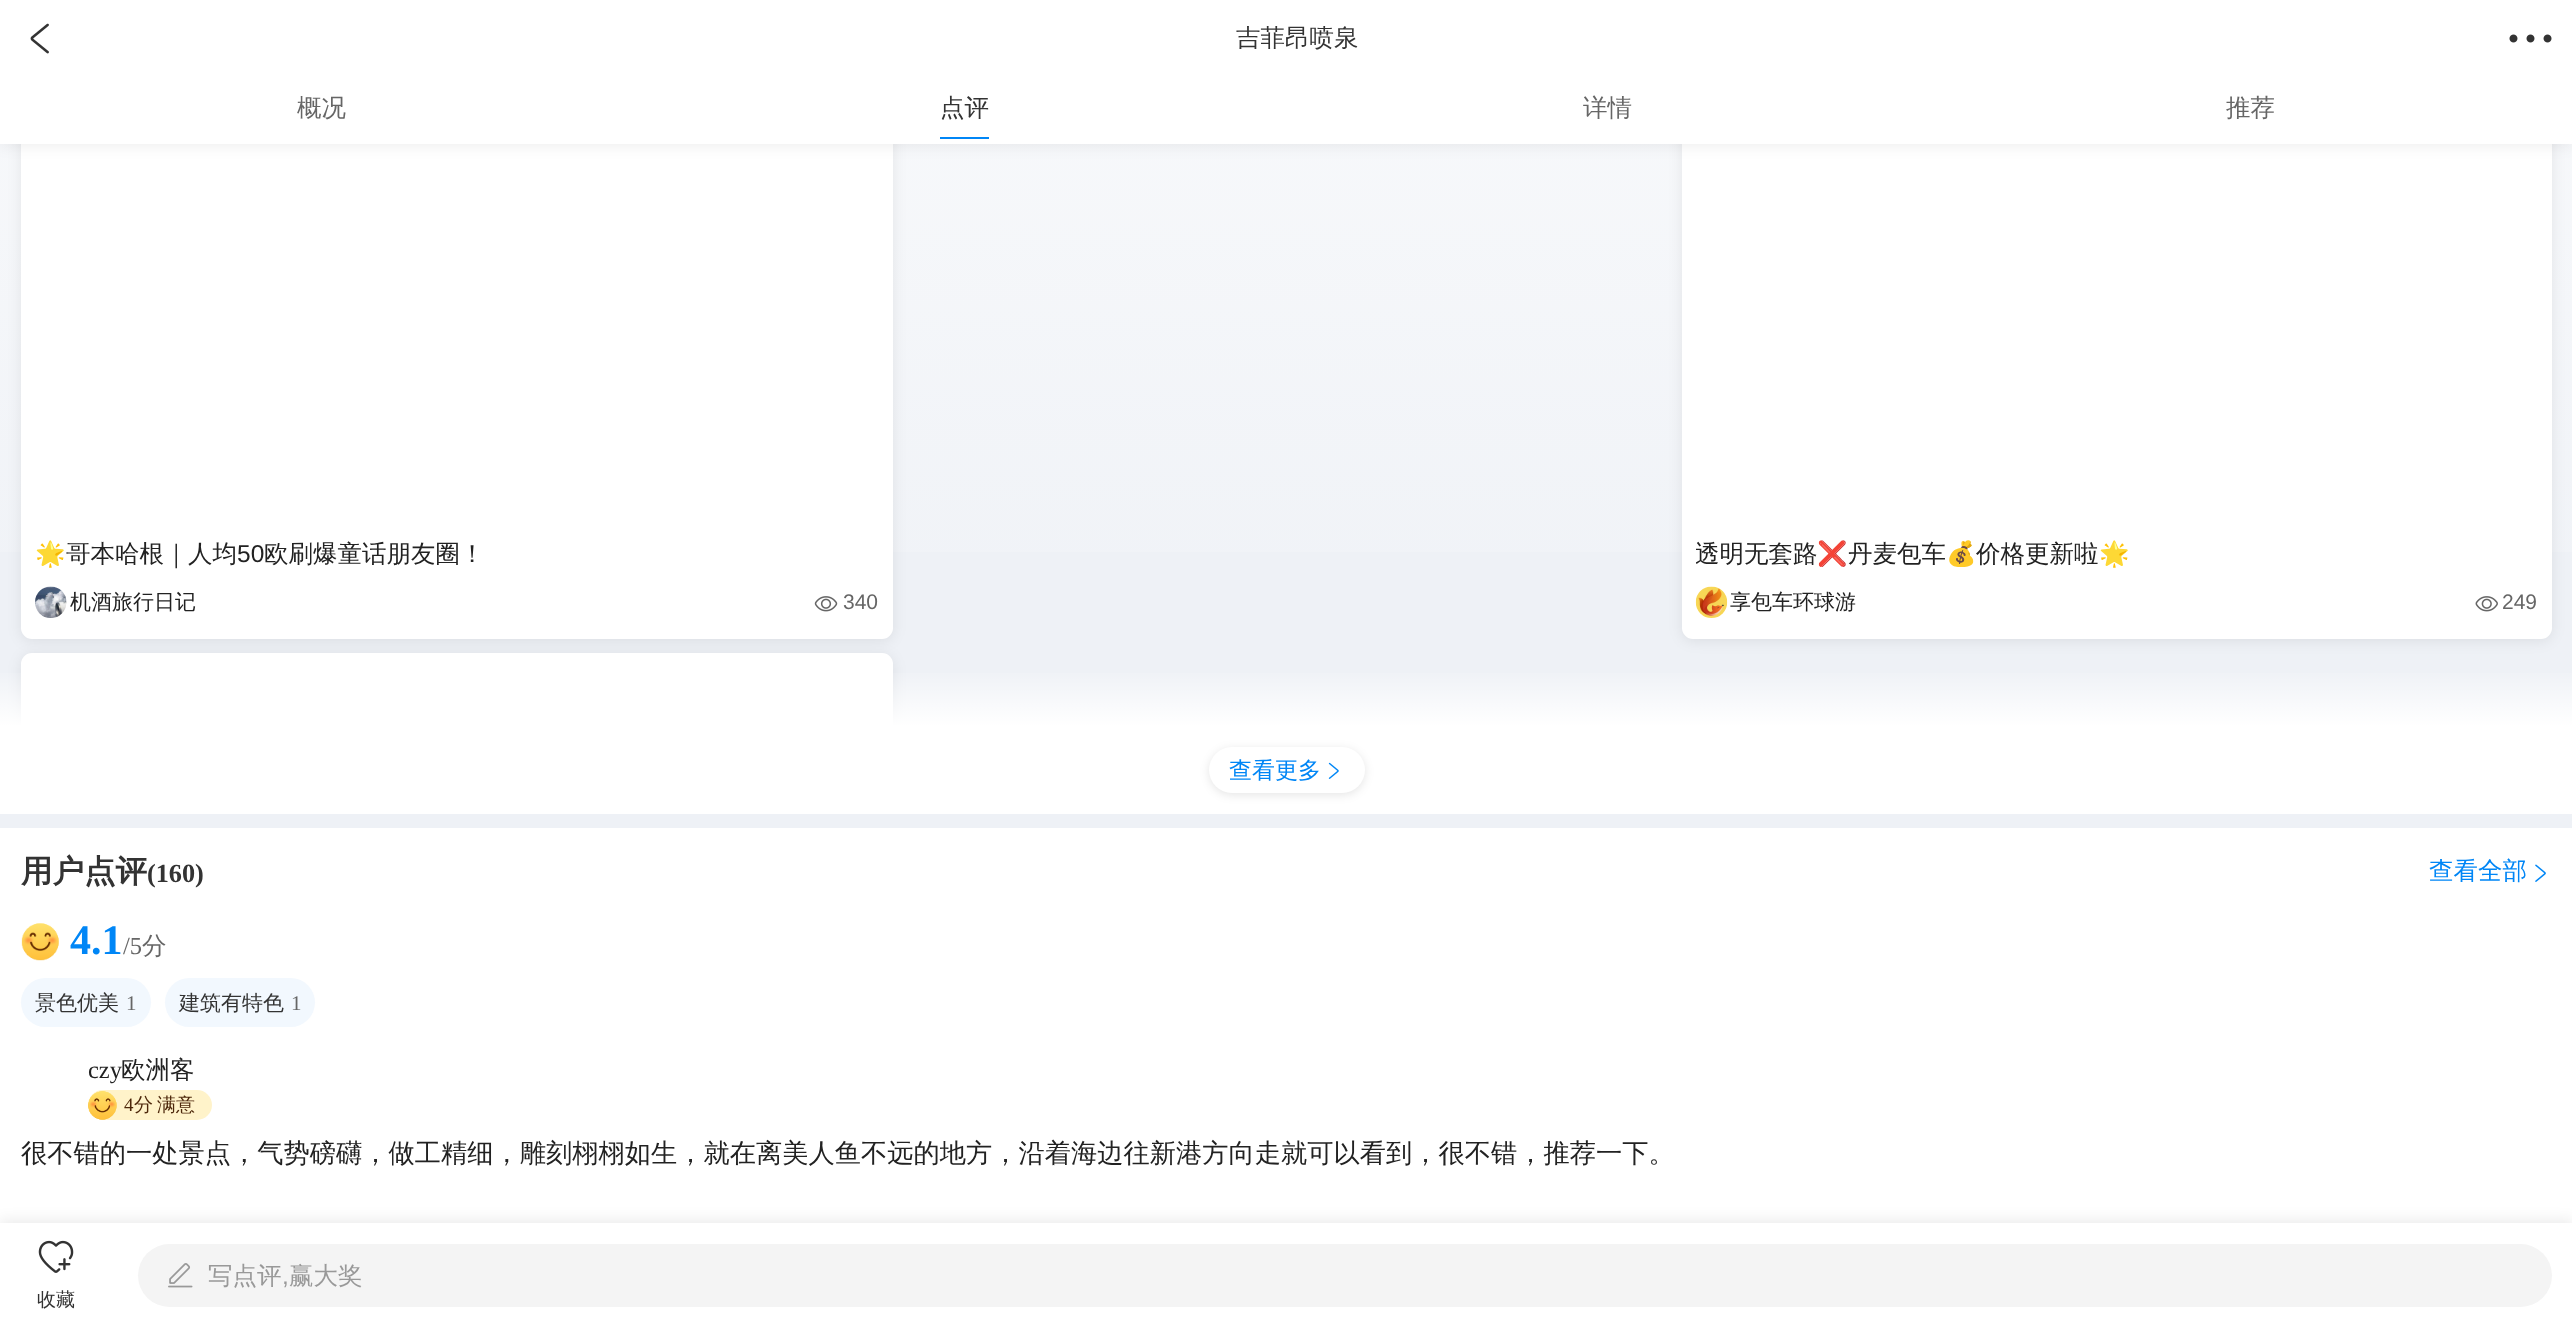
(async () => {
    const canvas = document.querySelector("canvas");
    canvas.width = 2572;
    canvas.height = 1327;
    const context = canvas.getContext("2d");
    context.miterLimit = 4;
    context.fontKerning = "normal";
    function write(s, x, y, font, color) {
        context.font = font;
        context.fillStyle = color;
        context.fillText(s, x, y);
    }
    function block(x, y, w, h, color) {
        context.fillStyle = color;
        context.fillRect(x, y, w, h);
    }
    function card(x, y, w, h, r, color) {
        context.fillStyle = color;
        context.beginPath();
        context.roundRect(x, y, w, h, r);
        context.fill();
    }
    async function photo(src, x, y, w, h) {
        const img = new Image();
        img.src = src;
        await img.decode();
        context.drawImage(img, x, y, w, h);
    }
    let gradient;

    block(0, 0, 2572, 1327, "rgb(238, 241, 246)");
    gradient = context.createLinearGradient(1286, -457, 1286, 726);
    gradient.addColorStop(0, "rgb(255, 255, 255)");
    gradient.addColorStop(1, "rgb(238, 241, 246)");
    context.fillStyle = gradient;
    context.fillRect(0, 144, 2572, 408);
    context.fillStyle = "rgba(0, 0, 0, 0.08)";
    context.filter = "blur(7px)";
    context.beginPath();
    context.roundRect(21, 100, 872, 541, 11);
    context.fill();
    context.filter = "none";
    card(21, 98, 872, 541, 11, "rgb(255, 255, 255)");
    context.fillStyle = "rgba(0, 0, 0, 0.08)";
    context.filter = "blur(7px)";
    context.beginPath();
    context.roundRect(1682, 100, 870, 541, 11);
    context.fill();
    context.filter = "none";
    card(1682, 98, 870, 541, 11, "rgb(255, 255, 255)");
    context.fillStyle = "rgba(0, 0, 0, 0.06)";
    context.filter = "blur(7px)";
    context.beginPath();
    context.rect(0, 77, 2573, 70);
    context.fill();
    context.filter = "none";
    block(0, 0, 2572, 144, "rgb(255, 255, 255)");
    await photo("media/1.png", 30, 23, 19, 31);
    write("吉菲昂喷泉", 1236, 46, "500 24.5px WenQuanYi Zen Hei", "rgb(51, 51, 51)");
    await photo("media/2.png", 2509, 34, 43, 9);
    write("概况", 297, 116, "500 24.5px WenQuanYi Zen Hei", "rgb(102, 102, 102)");
    block(940, 137, 49, 2, "rgb(0, 134, 246)");
    write("点评", 940, 116, "500 24.5px WenQuanYi Zen Hei", "rgb(51, 51, 51)");
    write("详情", 1583, 116, "500 24.5px WenQuanYi Zen Hei", "rgb(102, 102, 102)");
    write("推荐", 2226, 116, "500 24.5px WenQuanYi Zen Hei", "rgb(102, 102, 102)");
    write("🌟", 35, 562, "24.5px Noto Color Emoji", "rgb(34, 34, 34)");
    write("哥本哈根｜人均", 66, 562, "500 24.5px WenQuanYi Zen Hei", "rgb(34, 34, 34)");
    write("50", 237, 562, "24.5px Liberation Sans", "rgb(34, 34, 34)");
    write("欧刷爆童话朋友圈！", 264, 562, "500 24.5px WenQuanYi Zen Hei", "rgb(34, 34, 34)");
    await photo("media/3.png", 35, 586, 32, 32);
    write("机酒旅行日记", 70, 609, "500 21px WenQuanYi Zen Hei", "rgb(34, 34, 34)");
    await photo("media/4.png", 814, 596, 24, 16);
    write("340", 843, 609, "21px Liberation Sans", "rgb(102, 102, 102)");
    block(0, 828, 2572, 395, "rgb(255, 255, 255)");
    await photo("media/9.png", 21, 923, 38, 38);
    card(21, 978, 130, 49, 24.5, "rgb(242, 248, 254)");
    card(165, 978, 150, 49, 24.5, "rgb(242, 248, 254)");
    card(88, 1090, 124, 30, 15, "rgb(255, 243, 202)");
    await photo("media/10.png", 88, 1091, 29, 29);
    context.save();
    context.beginPath();
    context.rect(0, 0, 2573, 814);
    context.clip();
    context.fillStyle = "rgba(0, 0, 0, 0.08)";
    context.filter = "blur(7px)";
    context.beginPath();
    context.roundRect(21, 655, 872, 540, 11);
    context.fill();
    context.filter = "none";
    context.restore();
    context.fillStyle = "rgb(255, 255, 255)";
    context.beginPath();
    context.roundRect(21, 653, 872, 161, [11, 11, 0, 0]);
    context.fill();
    context.save();
    context.beginPath();
    context.rect(1696, 536, 842, 36);
    context.clip();
    write("透明无套路", 1695, 562, "500 24.5px WenQuanYi Zen Hei", "rgb(34, 34, 34)");
    context.restore();
    write("❌", 1817, 562, "24.5px Noto Color Emoji", "rgb(34, 34, 34)");
    write("丹麦包车", 1848, 562, "500 24.5px WenQuanYi Zen Hei", "rgb(34, 34, 34)");
    write("💰", 1946, 562, "24.5px Noto Color Emoji", "rgb(34, 34, 34)");
    write("价格更新啦", 1976, 562, "500 24.5px WenQuanYi Zen Hei", "rgb(34, 34, 34)");
    write("🌟", 2099, 562, "24.5px Noto Color Emoji", "rgb(34, 34, 34)");
    await photo("media/5.png", 1695, 586, 33, 32);
    write("享包车环球游", 1730, 609, "500 21px WenQuanYi Zen Hei", "rgb(34, 34, 34)");
    await photo("media/6.png", 2475, 596, 23, 16);
    write("249", 2502, 609, "21px Liberation Sans", "rgb(102, 102, 102)");
    gradient = context.createLinearGradient(1286, 667, 1286, 726);
    gradient.addColorStop(0, "rgba(255, 255, 255, 0)");
    gradient.addColorStop(1, "rgb(255, 255, 255)");
    context.fillStyle = gradient;
    context.fillRect(0, 673, 2572, 53);
    block(0, 726, 2572, 88, "rgb(255, 255, 255)");
    context.fillStyle = "rgba(0, 0, 0, 0.1)";
    context.filter = "blur(5px)";
    context.beginPath();
    context.roundRect(1209, 749, 156, 46, 23);
    context.fill();
    context.filter = "none";
    card(1209, 747, 156, 46, 23, "rgb(255, 255, 255)");
    write("查看更多", 1229, 778, "500 23px WenQuanYi Zen Hei", "rgb(0, 134, 246)");
    await photo("media/7.png", 1328, 762, 11, 17);
    write("用户点评", 21, 882, "bold 31.5px WenQuanYi Zen Hei", "rgb(51, 51, 51)");
    write("(160)", 147, 882, "bold 26.25px Liberation Serif", "rgb(51, 51, 51)");
    write("查看全部", 2429, 879, "500 24.5px WenQuanYi Zen Hei", "rgb(0, 134, 246)");
    await photo("media/8.png", 2535, 864, 11, 18);
    write("4.1", 70, 954, "bold 42px Liberation Serif", "rgb(0, 134, 246)");
    write("/5", 123, 954, "24.5px Liberation Serif", "rgb(102, 102, 102)");
    write("分", 142, 954, "500 24.5px WenQuanYi Zen Hei", "rgb(102, 102, 102)");
    write("景色优美", 35, 1010, "500 21px WenQuanYi Zen Hei", "rgb(51, 51, 51)");
    write("1", 126, 1010, "21px Liberation Serif", "rgb(102, 102, 102)");
    write("建筑有特色", 179, 1010, "500 21px WenQuanYi Zen Hei", "rgb(51, 51, 51)");
    write("1", 291, 1010, "21px Liberation Serif", "rgb(102, 102, 102)");
    write("czy", 88, 1078, "24.5px Liberation Serif", "rgb(34, 34, 34)");
    write("欧洲客", 121, 1078, "500 24.5px WenQuanYi Zen Hei", "rgb(34, 34, 34)");
    write("4", 124, 1111, "19px Liberation Serif", "rgb(77, 39, 10)");
    write("分", 134, 1111, "500 19px WenQuanYi Zen Hei", "rgb(77, 39, 10)");
    write("满意", 157, 1111, "500 19px WenQuanYi Zen Hei", "rgb(77, 39, 10)");
    write("很不错的一处景点，气势磅礴，做工精细，雕刻栩栩如生，就在离美人鱼不远的地方，沿着海边往新港方向走就可以看到，很不错，推荐一下。", 21, 1162, "500 26.25px WenQuanYi Zen Hei", "rgb(34, 34, 34)");
    context.fillStyle = "rgba(0, 0, 0, 0.08)";
    context.filter = "blur(7px)";
    context.beginPath();
    context.rect(0, 1220, 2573, 105);
    context.fill();
    context.filter = "none";
    block(0, 1223, 2572, 104, "rgb(255, 255, 255)");
    card(138, 1244, 2414, 63, 31.5, "rgb(244, 244, 244)");
    await photo("media/11.png", 168, 1263, 25, 25);
    write("写点评", 208, 1284, "500 24.5px WenQuanYi Zen Hei", "rgb(153, 153, 153)");
    write(",", 282, 1284, "24.5px Liberation Sans", "rgb(153, 153, 153)");
    write("赢大奖", 289, 1284, "500 24.5px WenQuanYi Zen Hei", "rgb(153, 153, 153)");
    await photo("media/12.png", 38, 1240, 36, 33);
    write("收藏", 37, 1306, "500 19px WenQuanYi Zen Hei", "rgb(51, 51, 51)");
})();
